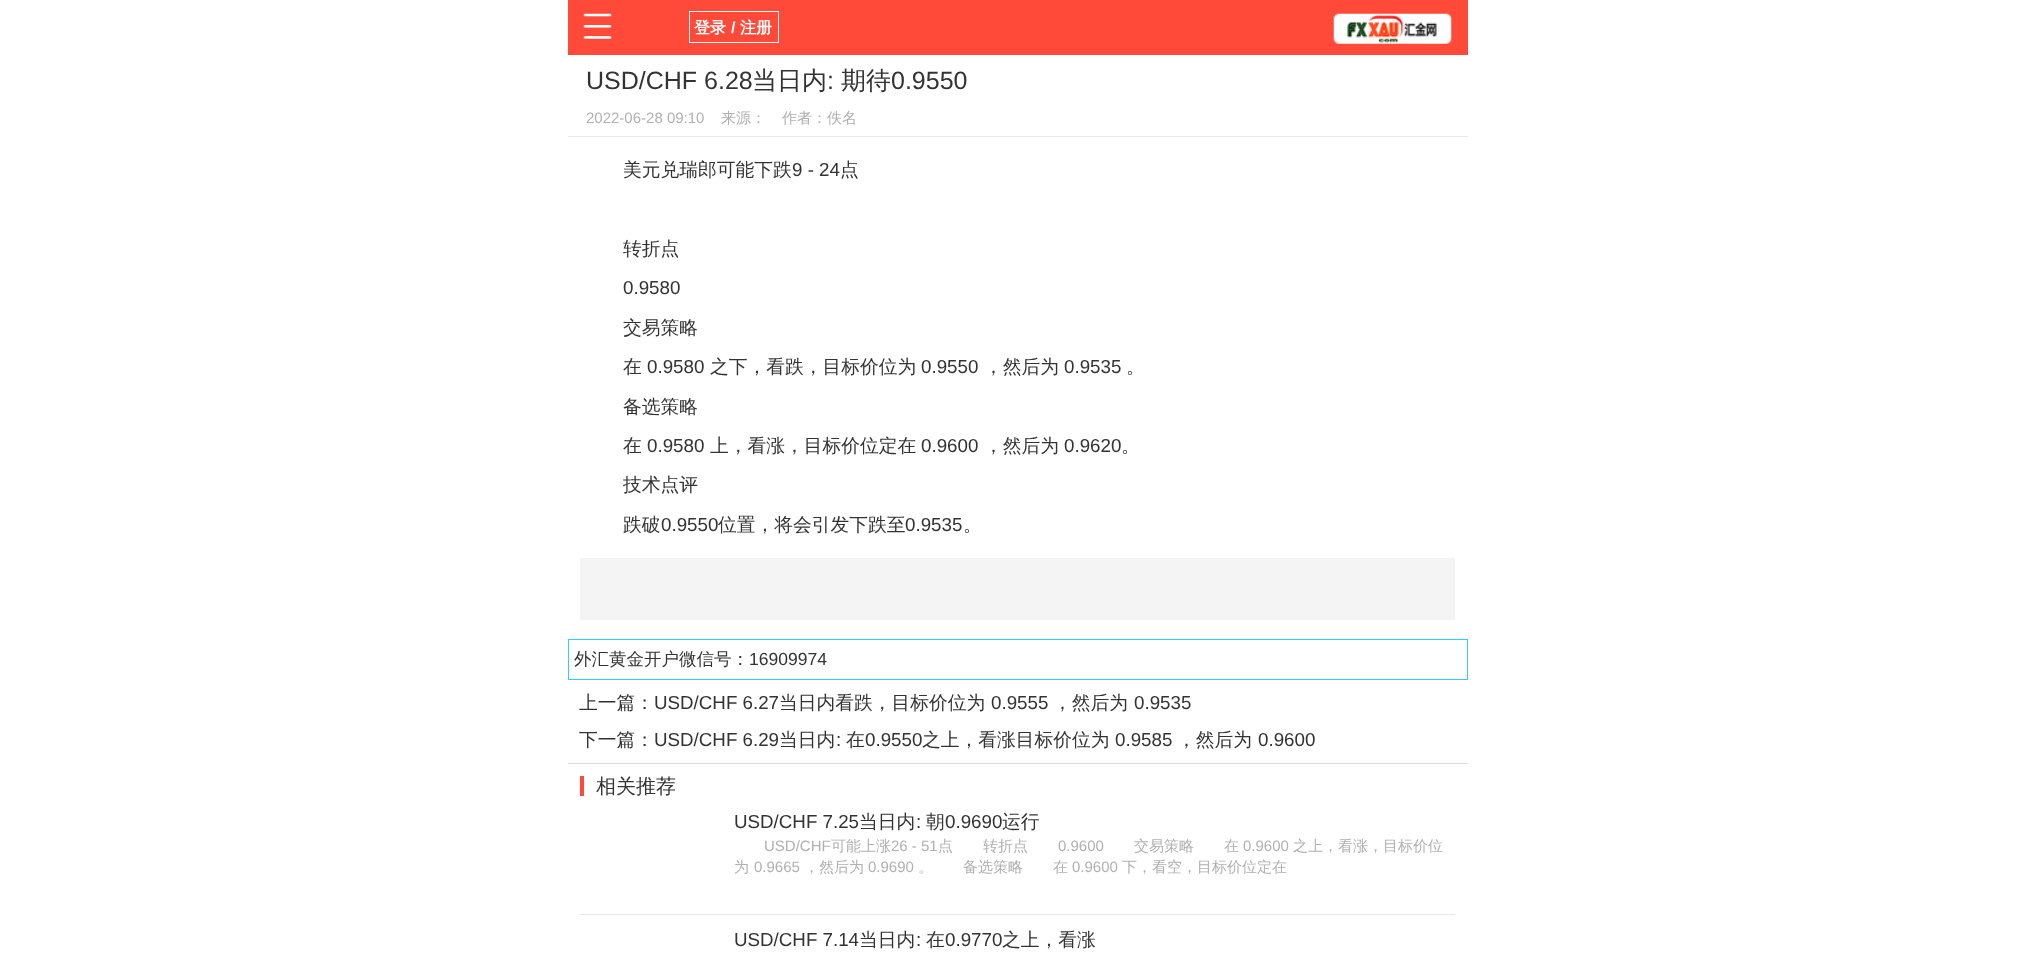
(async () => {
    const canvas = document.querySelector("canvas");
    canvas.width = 2033;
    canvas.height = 953;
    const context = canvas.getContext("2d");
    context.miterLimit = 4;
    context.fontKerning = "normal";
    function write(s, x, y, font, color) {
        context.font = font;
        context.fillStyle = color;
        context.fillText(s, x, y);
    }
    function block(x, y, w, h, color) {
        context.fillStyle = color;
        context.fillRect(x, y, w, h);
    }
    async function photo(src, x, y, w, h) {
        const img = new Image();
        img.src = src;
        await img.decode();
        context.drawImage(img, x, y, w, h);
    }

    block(0, 0, 2033, 953, "rgb(255, 255, 255)");
    block(568, 0, 900, 55, "rgb(255, 73, 57)");
    await photo("media/1.png", 583, 13, 29, 26);
    await photo("media/2.png", 1333, 13, 119, 31);
    context.strokeStyle = "rgb(255, 255, 255)";
    context.strokeRect(689.5, 11.5, 89, 31);
    write("登录", 694, 33, "bold 16px WenQuanYi Zen Hei", "rgb(255, 255, 255)");
    write("/", 731, 33, "bold 16px Liberation Sans", "rgb(255, 255, 255)");
    write("注册", 740, 33, "bold 16px WenQuanYi Zen Hei", "rgb(255, 255, 255)");
    block(568, 136, 900, 1, "rgb(233, 233, 233)");
    write("USD/CHF 6.28", 586, 89, "25px Liberation Sans", "rgb(51, 51, 51)");
    write("当日内", 752, 89, "500 25px WenQuanYi Zen Hei", "rgb(51, 51, 51)");
    write(":", 827, 89, "25px Liberation Sans", "rgb(51, 51, 51)");
    write("期待", 841, 89, "500 25px WenQuanYi Zen Hei", "rgb(51, 51, 51)");
    write("0.9550", 891, 89, "25px Liberation Sans", "rgb(51, 51, 51)");
    write("2022-06-28 09:10", 586, 123, "15px Liberation Sans", "rgb(176, 176, 176)");
    write("来源：", 721, 123, "500 15px WenQuanYi Zen Hei", "rgb(176, 176, 176)");
    write("作者：佚名", 782, 123, "500 15px WenQuanYi Zen Hei", "rgb(176, 176, 176)");
    write("美元兑瑞郎可能下跌", 623, 176, "500 18.75px WenQuanYi Zen Hei", "rgb(51, 51, 51)");
    write("9 - 24", 792, 176, "18.75px Liberation Sans", "rgb(51, 51, 51)");
    write("点", 840, 176, "500 18.75px WenQuanYi Zen Hei", "rgb(51, 51, 51)");
    write("转折点", 623, 255, "500 18.75px WenQuanYi Zen Hei", "rgb(51, 51, 51)");
    write("0.9580", 623, 294, "18.75px Liberation Sans", "rgb(51, 51, 51)");
    write("交易策略", 623, 334, "500 18.75px WenQuanYi Zen Hei", "rgb(51, 51, 51)");
    write("在", 623, 373, "500 18.75px WenQuanYi Zen Hei", "rgb(51, 51, 51)");
    write("0.9580", 647, 373, "18.75px Liberation Sans", "rgb(51, 51, 51)");
    write("之下，看跌，目标价位为", 710, 373, "500 18.75px WenQuanYi Zen Hei", "rgb(51, 51, 51)");
    write("0.9550", 921, 373, "18.75px Liberation Sans", "rgb(51, 51, 51)");
    write("，然后为", 984, 373, "500 18.75px WenQuanYi Zen Hei", "rgb(51, 51, 51)");
    write("0.9535", 1064, 373, "18.75px Liberation Sans", "rgb(51, 51, 51)");
    write("。", 1126, 373, "500 18.75px WenQuanYi Zen Hei", "rgb(51, 51, 51)");
    write("备选策略", 623, 413, "500 18.75px WenQuanYi Zen Hei", "rgb(51, 51, 51)");
    write("在", 623, 452, "500 18.75px WenQuanYi Zen Hei", "rgb(51, 51, 51)");
    write("0.9580", 647, 452, "18.75px Liberation Sans", "rgb(51, 51, 51)");
    write("上，看涨，目标价位定在", 710, 452, "500 18.75px WenQuanYi Zen Hei", "rgb(51, 51, 51)");
    write("0.9600", 921, 452, "18.75px Liberation Sans", "rgb(51, 51, 51)");
    write("，然后为", 984, 452, "500 18.75px WenQuanYi Zen Hei", "rgb(51, 51, 51)");
    write("0.9620", 1064, 452, "18.75px Liberation Sans", "rgb(51, 51, 51)");
    write("。", 1121, 452, "500 18.75px WenQuanYi Zen Hei", "rgb(51, 51, 51)");
    write("技术点评", 623, 491, "500 18.75px WenQuanYi Zen Hei", "rgb(51, 51, 51)");
    write("跌破", 623, 531, "500 18.75px WenQuanYi Zen Hei", "rgb(51, 51, 51)");
    write("0.9550", 661, 531, "18.75px Liberation Sans", "rgb(51, 51, 51)");
    write("位置，将会引发下跌至", 718, 531, "500 18.75px WenQuanYi Zen Hei", "rgb(51, 51, 51)");
    write("0.9535", 905, 531, "18.75px Liberation Sans", "rgb(51, 51, 51)");
    write("。", 963, 531, "500 18.75px WenQuanYi Zen Hei", "rgb(51, 51, 51)");
    block(580, 558, 875, 62, "rgb(244, 244, 244)");
    context.strokeStyle = "rgb(51, 204, 255)";
    context.strokeRect(568.5, 639.5, 899, 40);
    write("外汇黄金开户微信号：", 574, 665, "500 17.5px WenQuanYi Zen Hei", "rgb(51, 51, 51)");
    write("16909974", 749, 665, "17.5px Liberation Sans", "rgb(51, 51, 51)");
    block(568, 763, 900, 1, "rgb(221, 221, 221)");
    write("上一篇：", 579, 709, "500 18.75px WenQuanYi Zen Hei", "rgb(51, 51, 51)");
    write("USD/CHF 6.27", 654, 709, "18.75px Liberation Sans", "rgb(51, 51, 51)");
    write("当日内看跌，目标价位为", 779, 709, "500 18.75px WenQuanYi Zen Hei", "rgb(51, 51, 51)");
    write("0.9555", 991, 709, "18.75px Liberation Sans", "rgb(51, 51, 51)");
    write("，然后为", 1053, 709, "500 18.75px WenQuanYi Zen Hei", "rgb(51, 51, 51)");
    write("0.9535", 1134, 709, "18.75px Liberation Sans", "rgb(51, 51, 51)");
    write("下一篇：", 579, 746, "500 18.75px WenQuanYi Zen Hei", "rgb(51, 51, 51)");
    write("USD/CHF 6.29", 654, 746, "18.75px Liberation Sans", "rgb(51, 51, 51)");
    write("当日内", 779, 746, "500 18.75px WenQuanYi Zen Hei", "rgb(51, 51, 51)");
    write(":", 836, 746, "18.75px Liberation Sans", "rgb(51, 51, 51)");
    write("在", 846, 746, "500 18.75px WenQuanYi Zen Hei", "rgb(51, 51, 51)");
    write("0.9550", 865, 746, "18.75px Liberation Sans", "rgb(51, 51, 51)");
    write("之上，看涨目标价位为", 922, 746, "500 18.75px WenQuanYi Zen Hei", "rgb(51, 51, 51)");
    write("0.9585", 1115, 746, "18.75px Liberation Sans", "rgb(51, 51, 51)");
    write("，然后为", 1177, 746, "500 18.75px WenQuanYi Zen Hei", "rgb(51, 51, 51)");
    write("0.9600", 1258, 746, "18.75px Liberation Sans", "rgb(51, 51, 51)");
    block(580, 776, 4, 20, "rgb(255, 73, 57)");
    write("相关推荐", 596, 793, "500 20px WenQuanYi Zen Hei", "rgb(51, 51, 51)");
    block(580, 914, 875, 1, "rgb(233, 233, 233)");
    write("USD/CHF 7.25", 734, 828, "18.75px Liberation Sans", "rgb(51, 51, 51)");
    write("当日内", 859, 828, "500 18.75px WenQuanYi Zen Hei", "rgb(51, 51, 51)");
    write(":", 916, 828, "18.75px Liberation Sans", "rgb(51, 51, 51)");
    write("朝", 926, 828, "500 18.75px WenQuanYi Zen Hei", "rgb(51, 51, 51)");
    write("0.9690", 945, 828, "18.75px Liberation Sans", "rgb(51, 51, 51)");
    write("运行", 1002, 828, "500 18.75px WenQuanYi Zen Hei", "rgb(51, 51, 51)");
    write("USD/CHF", 764, 851, "15px Liberation Sans", "rgb(176, 176, 176)");
    write("可能上涨", 831, 851, "500 15px WenQuanYi Zen Hei", "rgb(176, 176, 176)");
    write("26 - 51", 891, 851, "15px Liberation Sans", "rgb(176, 176, 176)");
    write("点　　转折点", 938, 851, "500 15px WenQuanYi Zen Hei", "rgb(176, 176, 176)");
    write("0.9600", 1058, 851, "15px Liberation Sans", "rgb(176, 176, 176)");
    write("交易策略　　在", 1134, 851, "500 15px WenQuanYi Zen Hei", "rgb(176, 176, 176)");
    write("0.9600", 1243, 851, "15px Liberation Sans", "rgb(176, 176, 176)");
    write("之上，看涨，目标价位", 1293, 851, "500 15px WenQuanYi Zen Hei", "rgb(176, 176, 176)");
    write("为", 734, 872, "500 15px WenQuanYi Zen Hei", "rgb(176, 176, 176)");
    write("0.9665", 754, 872, "15px Liberation Sans", "rgb(176, 176, 176)");
    write("，然后为", 804, 872, "500 15px WenQuanYi Zen Hei", "rgb(176, 176, 176)");
    write("0.9690", 868, 872, "15px Liberation Sans", "rgb(176, 176, 176)");
    write("。　　备选策略　　在", 918, 872, "500 15px WenQuanYi Zen Hei", "rgb(176, 176, 176)");
    write("0.9600", 1072, 872, "15px Liberation Sans", "rgb(176, 176, 176)");
    write("下，看空，目标价位定在", 1122, 872, "500 15px WenQuanYi Zen Hei", "rgb(176, 176, 176)");
    write("USD/CHF 7.14", 734, 946, "18.75px Liberation Sans", "rgb(51, 51, 51)");
    write("当日内", 859, 946, "500 18.75px WenQuanYi Zen Hei", "rgb(51, 51, 51)");
    write(":", 916, 946, "18.75px Liberation Sans", "rgb(51, 51, 51)");
    write("在", 926, 946, "500 18.75px WenQuanYi Zen Hei", "rgb(51, 51, 51)");
    write("0.9770", 945, 946, "18.75px Liberation Sans", "rgb(51, 51, 51)");
    write("之上，看涨", 1002, 946, "500 18.75px WenQuanYi Zen Hei", "rgb(51, 51, 51)");
})();
